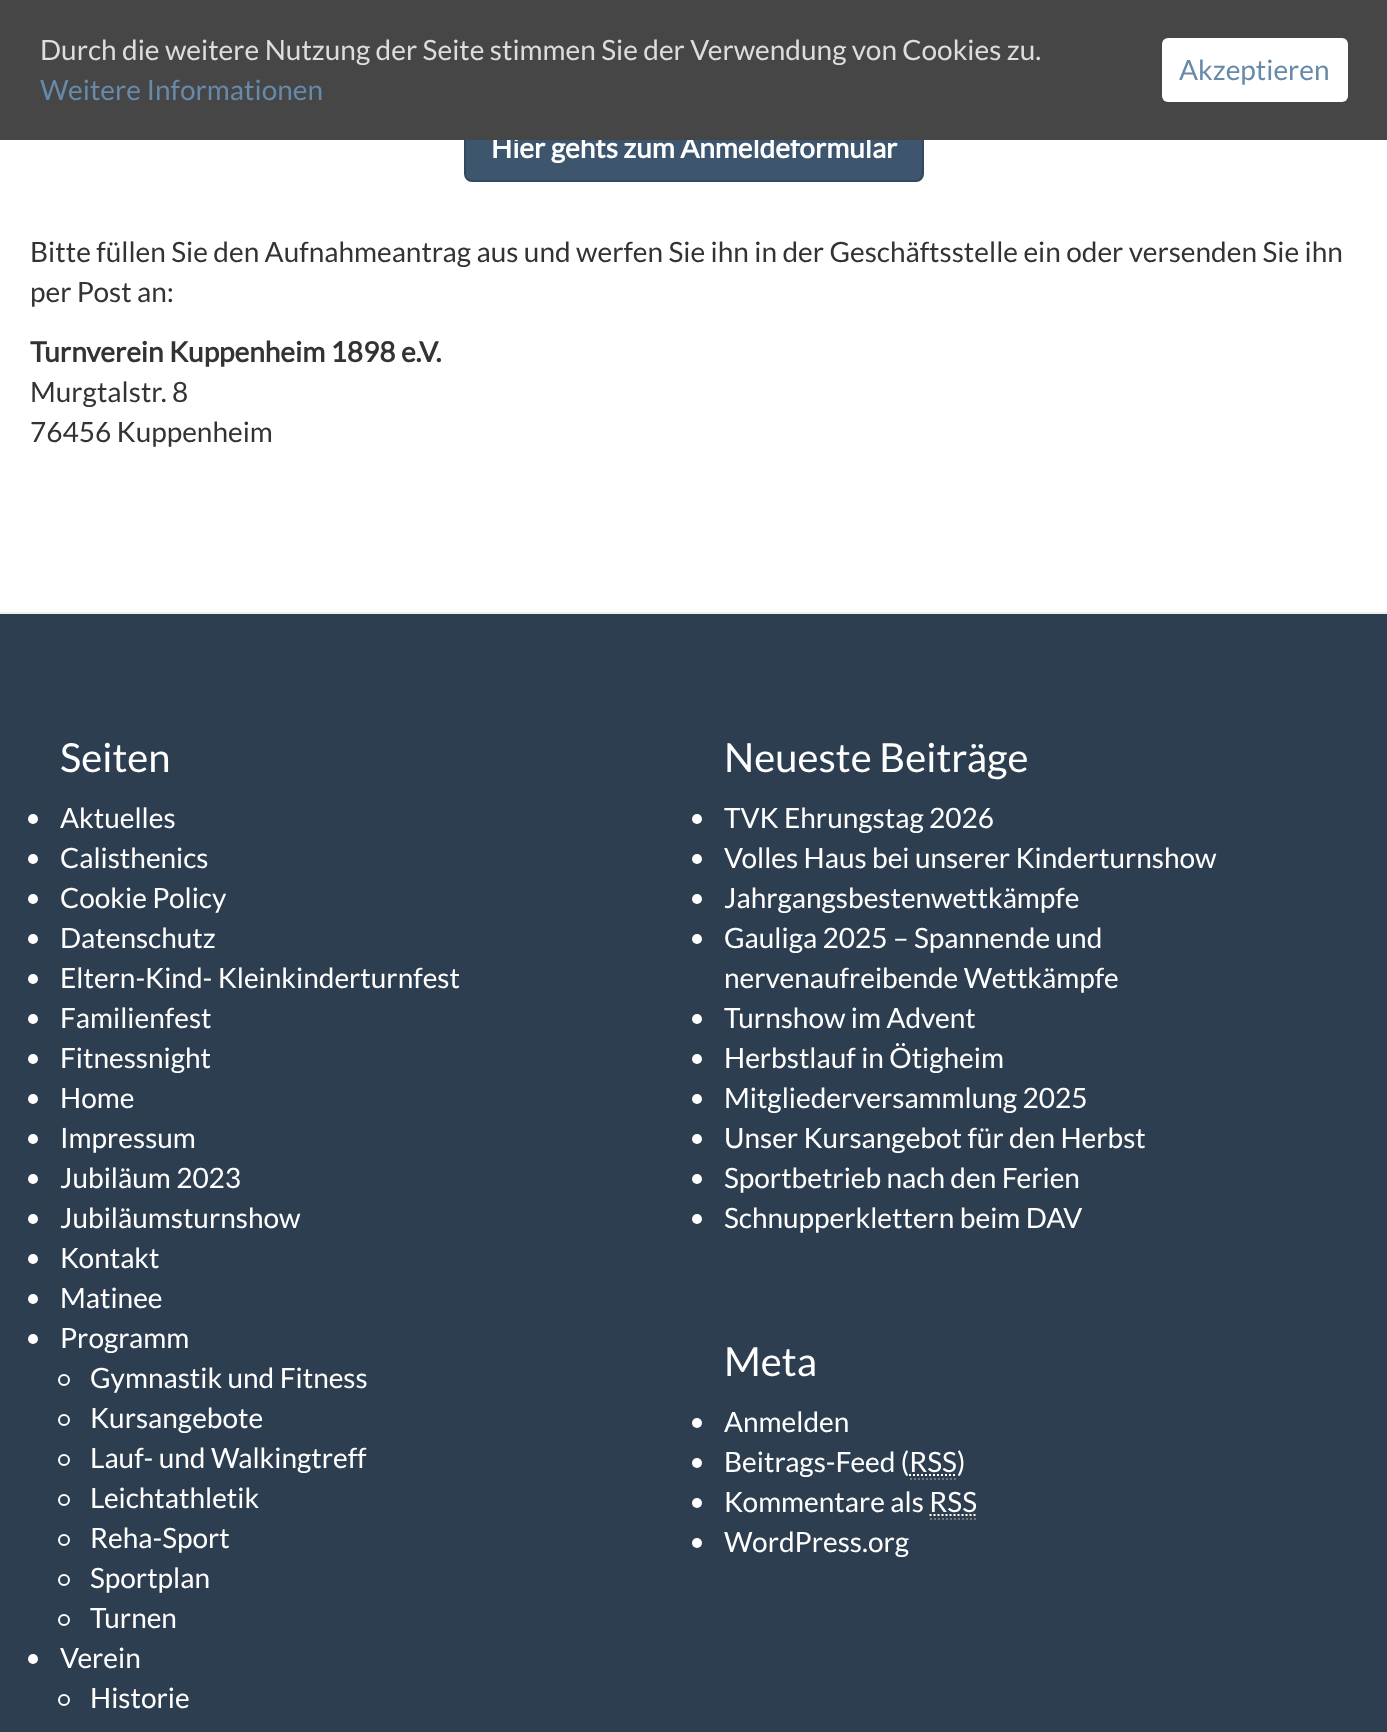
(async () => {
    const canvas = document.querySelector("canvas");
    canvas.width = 1387;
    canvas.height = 1732;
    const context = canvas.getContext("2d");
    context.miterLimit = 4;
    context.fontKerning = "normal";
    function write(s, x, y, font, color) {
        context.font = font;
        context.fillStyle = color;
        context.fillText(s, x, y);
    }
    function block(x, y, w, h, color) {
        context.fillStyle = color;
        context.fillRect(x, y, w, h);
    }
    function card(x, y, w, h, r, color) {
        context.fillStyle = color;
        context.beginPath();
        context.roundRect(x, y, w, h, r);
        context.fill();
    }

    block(0, 0, 1387, 1732, "rgb(255, 255, 255)");
    context.fillStyle = "rgb(61, 86, 110)";
    context.beginPath();
    context.roundRect(465, 115, 458, 66, 7);
    context.fill();
    context.strokeStyle = "rgb(52, 73, 94)";
    context.lineWidth = 2;
    context.stroke();
    write("Hier gehts zum Anmeldeformular", 491, 158, "bold 28px Lato", "rgb(255, 255, 255)");
    block(0, 0, 1387, 140, "rgb(70, 70, 70)");
    write("Durch die weitere Nutzung der Seite stimmen Sie der Verwendung von Cookies zu.", 40, 60, "28px Lato", "rgb(221, 221, 221)");
    write("Weitere Informationen", 40, 100, "28px Lato", "rgb(103, 137, 170)");
    card(1162, 38, 186, 64, 6, "rgb(255, 255, 255)");
    write("Akzeptieren", 1179, 80, "28px Lato", "rgb(103, 137, 170)");
    write("Bitte füllen Sie den Aufnahmeantrag aus und werfen Sie ihn in der Geschäftsstelle ein oder versenden Sie ihn", 30, 262, "28px Lato", "rgb(51, 51, 51)");
    write("per Post an:", 30, 302, "28px Lato", "rgb(51, 51, 51)");
    write("Turnverein Kuppenheim 1898 e.V.", 30, 362, "bold 28px Lato", "rgb(51, 51, 51)");
    write("Murgtalstr. 8", 30, 402, "28px Lato", "rgb(51, 51, 51)");
    write("76456 Kuppenheim", 30, 442, "28px Lato", "rgb(51, 51, 51)");
    block(0, 614, 1387, 1118, "rgb(44, 62, 80)");
    block(0, 612, 1387, 2, "rgb(238, 238, 238)");
    write("Seiten", 60, 772, "40px Lato", "rgb(255, 255, 255)");
    context.beginPath();
    context.arc(33, 819, 5, 0, Math.PI * 2);
    context.fill();
    write("Aktuelles", 60, 828, "28px Lato", "rgb(255, 255, 255)");
    context.beginPath();
    context.arc(33, 859, 5, 0, Math.PI * 2);
    context.fill();
    write("Calisthenics", 60, 868, "28px Lato", "rgb(255, 255, 255)");
    context.beginPath();
    context.arc(33, 899, 5, 0, Math.PI * 2);
    context.fill();
    write("Cookie Policy", 60, 908, "28px Lato", "rgb(255, 255, 255)");
    context.beginPath();
    context.arc(33, 939, 5, 0, Math.PI * 2);
    context.fill();
    write("Datenschutz", 60, 948, "28px Lato", "rgb(255, 255, 255)");
    context.beginPath();
    context.arc(33, 979, 5, 0, Math.PI * 2);
    context.fill();
    write("Eltern-Kind- Kleinkinderturnfest", 60, 988, "28px Lato", "rgb(255, 255, 255)");
    context.beginPath();
    context.arc(33, 1019, 5, 0, Math.PI * 2);
    context.fill();
    write("Familienfest", 60, 1028, "28px Lato", "rgb(255, 255, 255)");
    context.beginPath();
    context.arc(33, 1059, 5, 0, Math.PI * 2);
    context.fill();
    write("Fitnessnight", 60, 1068, "28px Lato", "rgb(255, 255, 255)");
    context.beginPath();
    context.arc(33, 1099, 5, 0, Math.PI * 2);
    context.fill();
    write("Home", 60, 1108, "28px Lato", "rgb(255, 255, 255)");
    context.beginPath();
    context.arc(33, 1139, 5, 0, Math.PI * 2);
    context.fill();
    write("Impressum", 60, 1148, "28px Lato", "rgb(255, 255, 255)");
    context.beginPath();
    context.arc(33, 1179, 5, 0, Math.PI * 2);
    context.fill();
    write("Jubiläum 2023", 60, 1188, "28px Lato", "rgb(255, 255, 255)");
    context.beginPath();
    context.arc(33, 1219, 5, 0, Math.PI * 2);
    context.fill();
    write("Jubiläumsturnshow", 60, 1228, "28px Lato", "rgb(255, 255, 255)");
    context.beginPath();
    context.arc(33, 1259, 5, 0, Math.PI * 2);
    context.fill();
    write("Kontakt", 60, 1268, "28px Lato", "rgb(255, 255, 255)");
    context.beginPath();
    context.arc(33, 1299, 5, 0, Math.PI * 2);
    context.fill();
    write("Matinee", 60, 1308, "28px Lato", "rgb(255, 255, 255)");
    context.beginPath();
    context.arc(33, 1339, 5, 0, Math.PI * 2);
    context.fill();
    write("Programm", 60, 1348, "28px Lato", "rgb(255, 255, 255)");
    context.beginPath();
    context.arc(64, 1380, 5, 0, Math.PI * 2);
    context.strokeStyle = "rgb(255, 255, 255)";
    context.stroke();
    write("Gymnastik und Fitness", 90, 1388, "28px Lato", "rgb(255, 255, 255)");
    context.beginPath();
    context.arc(64, 1420, 5, 0, Math.PI * 2);
    context.stroke();
    write("Kursangebote", 90, 1428, "28px Lato", "rgb(255, 255, 255)");
    context.beginPath();
    context.arc(64, 1460, 5, 0, Math.PI * 2);
    context.stroke();
    write("Lauf- und Walkingtreff", 90, 1468, "28px Lato", "rgb(255, 255, 255)");
    context.beginPath();
    context.arc(64, 1500, 5, 0, Math.PI * 2);
    context.stroke();
    write("Leichtathletik", 90, 1508, "28px Lato", "rgb(255, 255, 255)");
    context.beginPath();
    context.arc(64, 1540, 5, 0, Math.PI * 2);
    context.stroke();
    write("Reha-Sport", 90, 1548, "28px Lato", "rgb(255, 255, 255)");
    context.beginPath();
    context.arc(64, 1580, 5, 0, Math.PI * 2);
    context.stroke();
    write("Sportplan", 90, 1588, "28px Lato", "rgb(255, 255, 255)");
    context.beginPath();
    context.arc(64, 1620, 5, 0, Math.PI * 2);
    context.stroke();
    write("Turnen", 90, 1628, "28px Lato", "rgb(255, 255, 255)");
    context.beginPath();
    context.arc(33, 1659, 5, 0, Math.PI * 2);
    context.fill();
    write("Verein", 60, 1668, "28px Lato", "rgb(255, 255, 255)");
    context.beginPath();
    context.arc(64, 1700, 5, 0, Math.PI * 2);
    context.stroke();
    write("Historie", 90, 1708, "28px Lato", "rgb(255, 255, 255)");
    write("Neueste Beiträge", 724, 772, "40px Lato", "rgb(255, 255, 255)");
    context.beginPath();
    context.arc(697, 819, 5, 0, Math.PI * 2);
    context.fill();
    write("TVK Ehrungstag 2026", 724, 828, "28px Lato", "rgb(255, 255, 255)");
    context.beginPath();
    context.arc(697, 859, 5, 0, Math.PI * 2);
    context.fill();
    write("Volles Haus bei unserer Kinderturnshow", 724, 868, "28px Lato", "rgb(255, 255, 255)");
    context.beginPath();
    context.arc(697, 899, 5, 0, Math.PI * 2);
    context.fill();
    write("Jahrgangsbestenwettkämpfe", 724, 908, "28px Lato", "rgb(255, 255, 255)");
    context.beginPath();
    context.arc(697, 939, 5, 0, Math.PI * 2);
    context.fill();
    write("Gauliga 2025 – Spannende und", 724, 948, "28px Lato", "rgb(255, 255, 255)");
    write("nervenaufreibende Wettkämpfe", 724, 988, "28px Lato", "rgb(255, 255, 255)");
    context.beginPath();
    context.arc(697, 1019, 5, 0, Math.PI * 2);
    context.fill();
    write("Turnshow im Advent", 724, 1028, "28px Lato", "rgb(255, 255, 255)");
    context.beginPath();
    context.arc(697, 1059, 5, 0, Math.PI * 2);
    context.fill();
    write("Herbstlauf in Ötigheim", 724, 1068, "28px Lato", "rgb(255, 255, 255)");
    context.beginPath();
    context.arc(697, 1099, 5, 0, Math.PI * 2);
    context.fill();
    write("Mitgliederversammlung 2025", 724, 1108, "28px Lato", "rgb(255, 255, 255)");
    context.beginPath();
    context.arc(697, 1139, 5, 0, Math.PI * 2);
    context.fill();
    write("Unser Kursangebot für den Herbst", 724, 1148, "28px Lato", "rgb(255, 255, 255)");
    context.beginPath();
    context.arc(697, 1179, 5, 0, Math.PI * 2);
    context.fill();
    write("Sportbetrieb nach den Ferien", 724, 1188, "28px Lato", "rgb(255, 255, 255)");
    context.beginPath();
    context.arc(697, 1219, 5, 0, Math.PI * 2);
    context.fill();
    write("Schnupperklettern beim DAV", 724, 1228, "28px Lato", "rgb(255, 255, 255)");
    write("Meta", 724, 1376, "40px Lato", "rgb(255, 255, 255)");
    context.beginPath();
    context.arc(697, 1423, 5, 0, Math.PI * 2);
    context.fill();
    write("Anmelden", 724, 1432, "28px Lato", "rgb(255, 255, 255)");
    context.beginPath();
    context.arc(697, 1463, 5, 0, Math.PI * 2);
    context.fill();
    write("Beitrags-Feed (RSS)", 724, 1472, "28px Lato", "rgb(255, 255, 255)");
    context.beginPath();
    context.moveTo(910, 1479);
    context.lineTo(956, 1479);
    context.strokeStyle = "rgb(119, 119, 119)";
    context.setLineDash([2, 2]);
    context.stroke();
    context.beginPath();
    context.moveTo(909, 1475);
    context.lineTo(957, 1475);
    context.strokeStyle = "rgb(255, 255, 255)";
    context.stroke();
    context.beginPath();
    context.arc(697, 1503, 5, 0, Math.PI * 2);
    context.fill();
    write("Kommentare als RSS", 724, 1512, "28px Lato", "rgb(255, 255, 255)");
    context.beginPath();
    context.moveTo(930, 1519);
    context.lineTo(978, 1519);
    context.strokeStyle = "rgb(119, 119, 119)";
    context.stroke();
    context.beginPath();
    context.moveTo(929.5, 1515);
    context.lineTo(977, 1515);
    context.strokeStyle = "rgb(255, 255, 255)";
    context.stroke();
    context.beginPath();
    context.arc(697, 1543, 5, 0, Math.PI * 2);
    context.fill();
    write("WordPress.org", 724, 1552, "28px Lato", "rgb(255, 255, 255)");
})();
